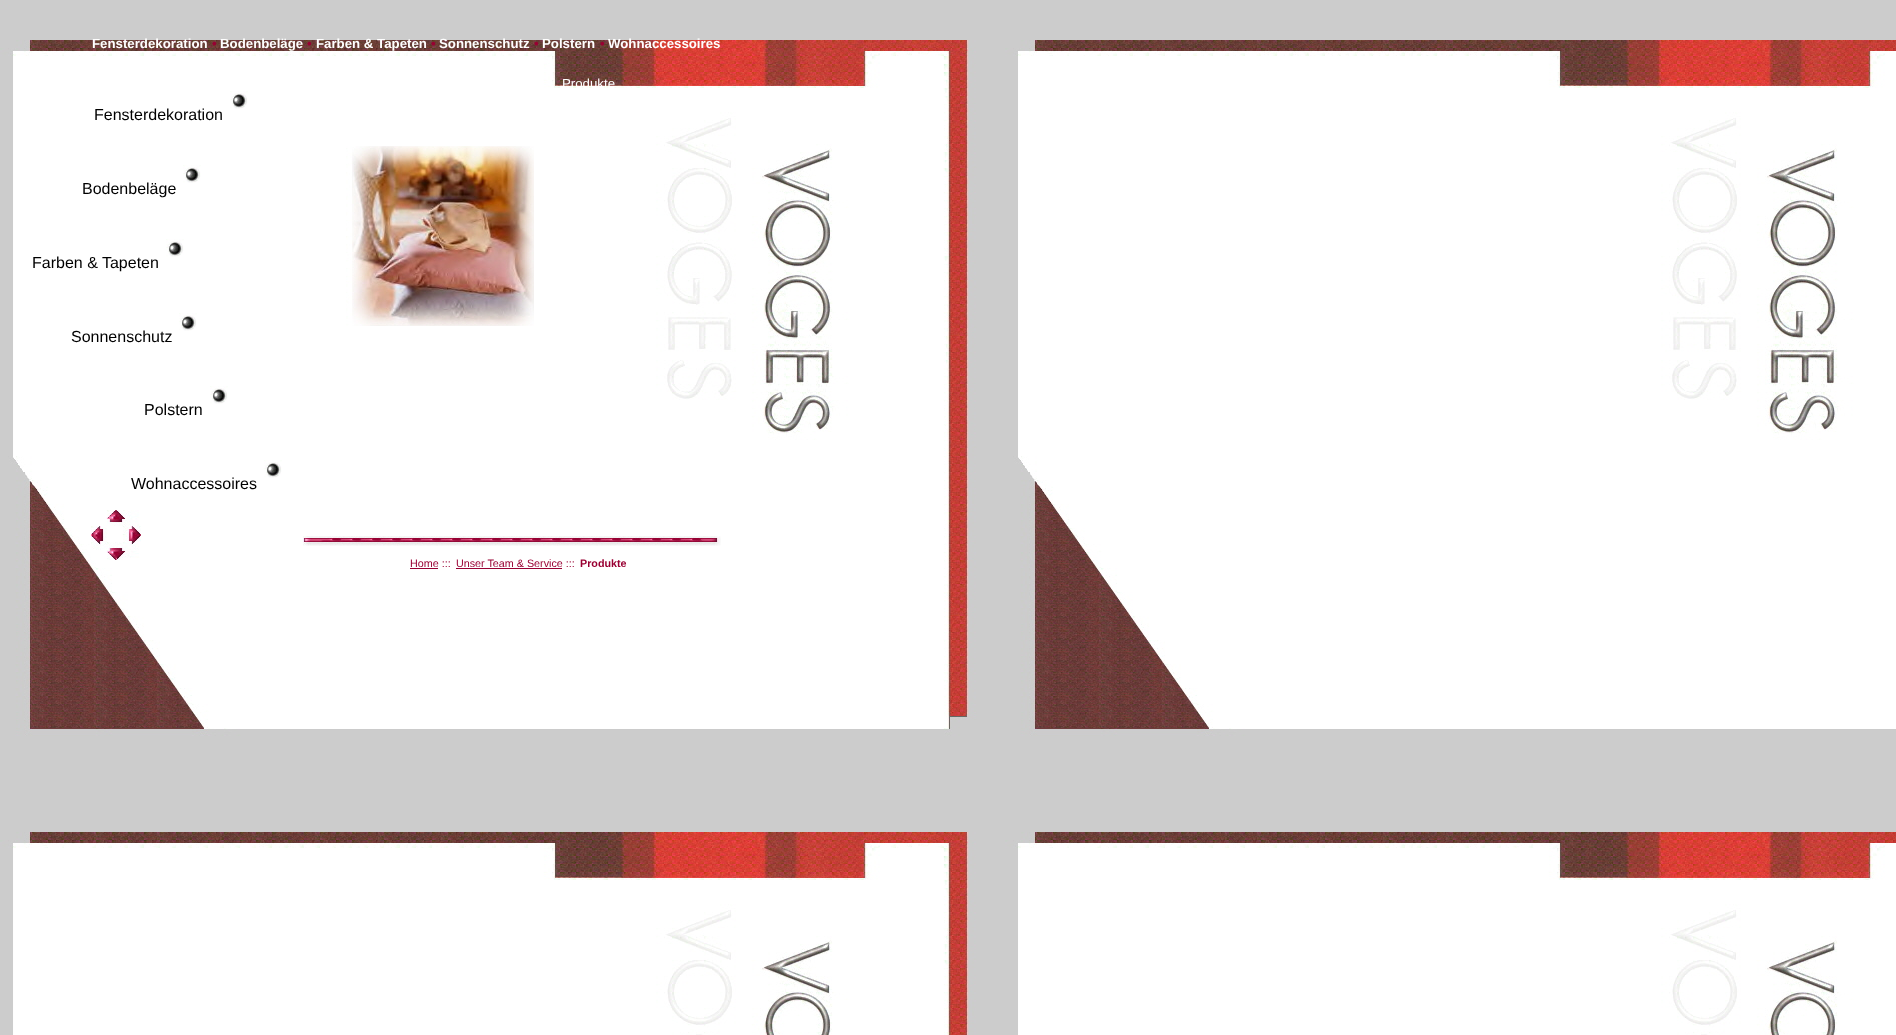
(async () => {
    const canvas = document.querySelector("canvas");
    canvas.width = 1896;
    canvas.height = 1035;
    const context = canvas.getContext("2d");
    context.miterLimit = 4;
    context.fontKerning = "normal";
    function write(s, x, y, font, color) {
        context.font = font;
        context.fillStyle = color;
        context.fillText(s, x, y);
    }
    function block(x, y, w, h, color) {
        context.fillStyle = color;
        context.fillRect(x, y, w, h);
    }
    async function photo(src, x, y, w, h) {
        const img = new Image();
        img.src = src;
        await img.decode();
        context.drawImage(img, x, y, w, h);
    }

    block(0, 0, 1896, 1035, "rgb(255, 255, 255)");
    await photo("media/1.png", 0, 0, 1896, 1035);
    write("Fensterdekoration", 92, 48, "bold 13.25px Liberation Sans", "rgb(255, 255, 255)");
    write("•", 212, 48, "bold 13.25px Liberation Sans", "rgb(153, 0, 51)");
    write("Bodenbeläge", 220, 48, "bold 13.25px Liberation Sans", "rgb(255, 255, 255)");
    write("•", 307, 48, "bold 13.25px Liberation Sans", "rgb(153, 0, 51)");
    write("Farben & Tapeten", 316, 48, "bold 13.25px Liberation Sans", "rgb(255, 255, 255)");
    write("•", 431, 48, "bold 13.25px Liberation Sans", "rgb(153, 0, 51)");
    write("Sonnenschutz", 439, 48, "bold 13.25px Liberation Sans", "rgb(255, 255, 255)");
    write("•", 534, 48, "bold 13.25px Liberation Sans", "rgb(153, 0, 51)");
    write("Polstern", 542, 48, "bold 13.25px Liberation Sans", "rgb(255, 255, 255)");
    write("•", 600, 48, "bold 13.25px Liberation Sans", "rgb(153, 0, 51)");
    write("Wohnaccessoires", 608, 48, "bold 13.25px Liberation Sans", "rgb(255, 255, 255)");
    write("Produkte", 562, 88, "13.25px Liberation Sans", "rgb(255, 255, 255)");
    await photo("media/2.png", 230, 91, 18, 18);
    write("Fensterdekoration", 94, 120, "16px Liberation Sans", "rgb(0, 0, 0)");
    await photo("media/2.png", 183, 165, 18, 18);
    await photo("media/3.png", 346, 146, 188, 180);
    write("Bodenbeläge", 82, 194, "16px Liberation Sans", "rgb(0, 0, 0)");
    await photo("media/2.png", 166, 239, 18, 18);
    write("Farben & Tapeten", 32, 268, "16px Liberation Sans", "rgb(0, 0, 0)");
    await photo("media/2.png", 179, 313, 18, 18);
    write("Sonnenschutz", 71, 342, "16px Liberation Sans", "rgb(0, 0, 0)");
    await photo("media/2.png", 210, 386, 18, 18);
    write("Polstern", 144, 415, "16px Liberation Sans", "rgb(0, 0, 0)");
    await photo("media/2.png", 264, 460, 18, 18);
    write("Wohnaccessoires", 131, 489, "16px Liberation Sans", "rgb(0, 0, 0)");
    await photo("media/4.png", 91, 510, 50, 50);
    await photo("media/5.png", 303, 536, 418, 10);
    write("Home :::", 410, 567, "10.75px Liberation Sans", "rgb(153, 0, 51)");
    block(410, 568, 28, 1, "rgb(153, 0, 51)");
    write("Unser Team & Service :::", 456, 567, "10.75px Liberation Sans", "rgb(153, 0, 51)");
    block(456, 568, 106, 1, "rgb(153, 0, 51)");
    write("Produkte", 580, 567, "bold 10.75px Liberation Sans", "rgb(153, 0, 51)");
})();
